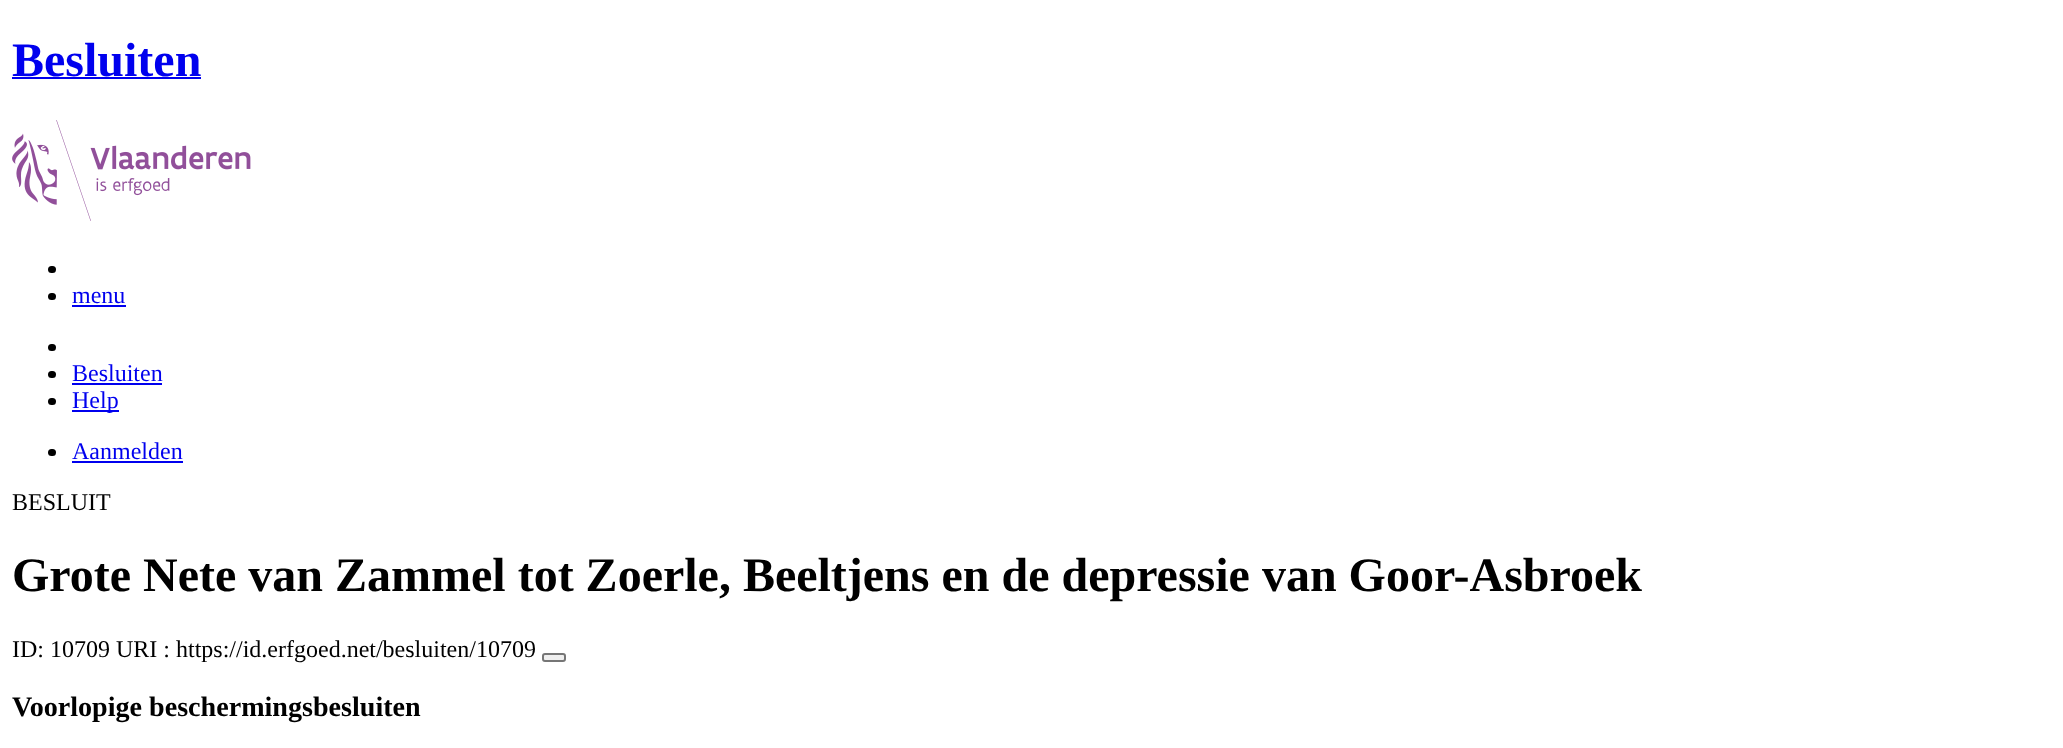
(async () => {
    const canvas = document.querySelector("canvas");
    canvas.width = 2063;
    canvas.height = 748;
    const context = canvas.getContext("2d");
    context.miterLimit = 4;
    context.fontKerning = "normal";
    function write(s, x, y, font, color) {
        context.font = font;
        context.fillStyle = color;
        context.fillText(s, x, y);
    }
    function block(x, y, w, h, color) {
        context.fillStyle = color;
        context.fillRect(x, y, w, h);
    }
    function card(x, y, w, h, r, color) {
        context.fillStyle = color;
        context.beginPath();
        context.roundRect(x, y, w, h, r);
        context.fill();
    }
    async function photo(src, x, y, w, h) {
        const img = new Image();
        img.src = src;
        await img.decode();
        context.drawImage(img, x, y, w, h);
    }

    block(0, 0, 2063, 748, "rgb(255, 255, 255)");
    write("Besluiten", 12, 76, "bold 48px Liberation Serif", "rgb(0, 0, 238)");
    block(12, 77, 189, 2, "rgb(0, 0, 238)");
    await photo("media/1.png", 12, 120, 239, 101);
    card(48, 266, 8, 7, 3.5, "rgb(0, 0, 0)");
    card(48, 293, 8, 7, 3.5, "rgb(0, 0, 0)");
    write("menu", 72, 303, "24px Liberation Serif", "rgb(0, 0, 238)");
    block(72, 305, 54, 2, "rgb(0, 0, 238)");
    card(48, 344, 8, 7, 3.5, "rgb(0, 0, 0)");
    card(48, 371, 8, 7, 3.5, "rgb(0, 0, 0)");
    write("Besluiten", 72, 381, "24px Liberation Serif", "rgb(0, 0, 238)");
    block(72, 383, 90, 2, "rgb(0, 0, 238)");
    card(48, 398, 8, 7, 3.5, "rgb(0, 0, 0)");
    block(72, 410, 47, 2, "rgb(0, 0, 238)");
    write("Help", 72, 408, "24px Liberation Serif", "rgb(0, 0, 238)");
    card(48, 449, 8, 7, 3.5, "rgb(0, 0, 0)");
    write("Aanmelden", 72, 459, "24px Liberation Serif", "rgb(0, 0, 238)");
    block(72, 461, 111, 2, "rgb(0, 0, 238)");
    write("BESLUIT", 12, 510, "24px Liberation Serif", "rgb(0, 0, 0)");
    write("Grote Nete van Zammel tot Zoerle, Beeltjens en de depressie van Goor-Asbroek", 12, 591, "bold 48px Liberation Serif", "rgb(0, 0, 0)");
    write("ID: 10709 URI : https://id.erfgoed.net/besluiten/10709", 12, 657, "24px Liberation Serif", "rgb(0, 0, 0)");
    context.fillStyle = "rgb(239, 239, 239)";
    context.beginPath();
    context.roundRect(543, 654, 22, 7, 2);
    context.fill();
    context.strokeStyle = "rgb(118, 118, 118)";
    context.lineWidth = 2;
    context.stroke();
    write("Voorlopige beschermingsbesluiten", 12, 716, "bold 28.1px Liberation Serif", "rgb(0, 0, 0)");
})();
